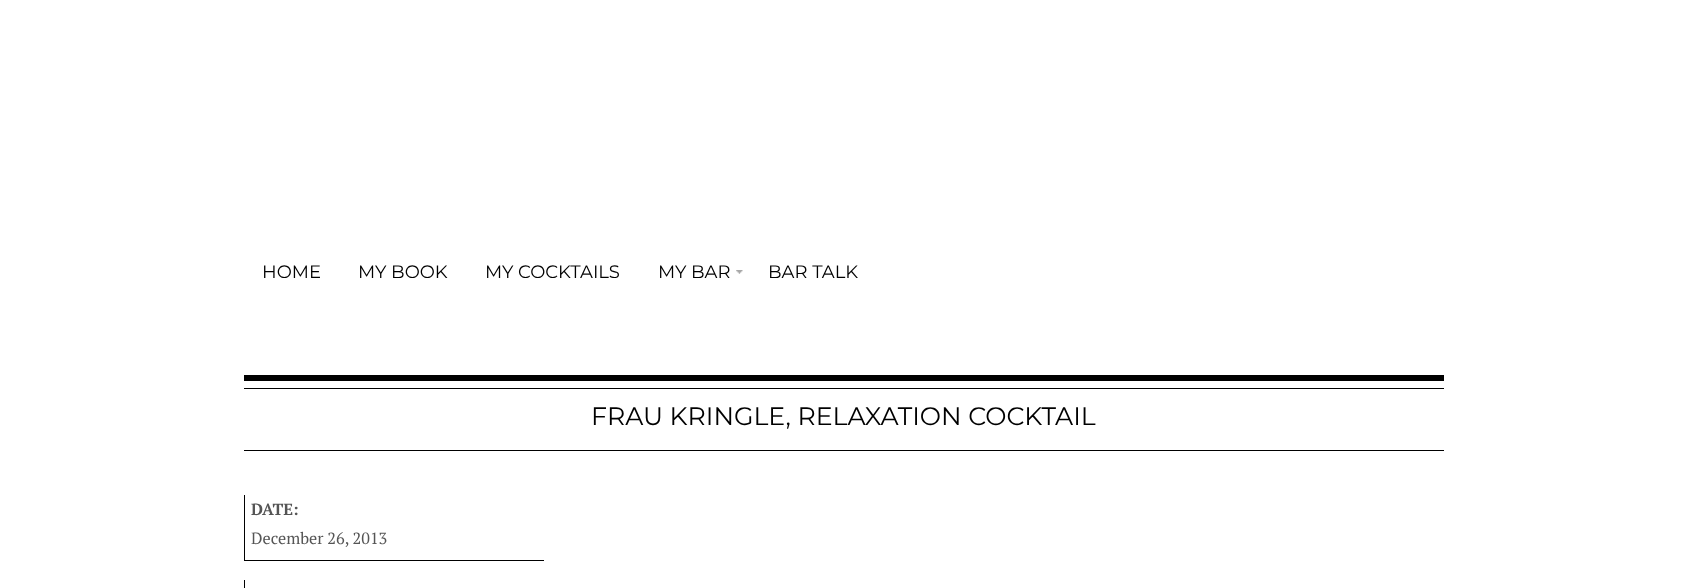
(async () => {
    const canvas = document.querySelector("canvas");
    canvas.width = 1686;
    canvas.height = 588;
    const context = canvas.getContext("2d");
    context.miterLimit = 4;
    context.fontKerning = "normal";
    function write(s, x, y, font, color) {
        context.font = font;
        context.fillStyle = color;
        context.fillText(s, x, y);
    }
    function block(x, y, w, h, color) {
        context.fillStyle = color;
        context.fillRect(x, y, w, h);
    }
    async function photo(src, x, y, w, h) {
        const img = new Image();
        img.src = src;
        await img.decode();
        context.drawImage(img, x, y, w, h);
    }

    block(0, 0, 1686, 588, "rgb(255, 255, 255)");
    write("HOME", 262, 278, "18px Montserrat", "rgb(0, 0, 0)");
    write("MY BOOK", 358, 278, "18px Montserrat", "rgb(0, 0, 0)");
    write("MY COCKTAILS", 485, 278, "18px Montserrat", "rgb(0, 0, 0)");
    await photo("media/1.png", 736, 270, 7, 4);
    write("MY BAR", 658, 278, "18px Montserrat", "rgb(0, 0, 0)");
    write("BAR TALK", 768, 278, "18px Montserrat", "rgb(0, 0, 0)");
    block(244, 375, 1200, 6, "rgb(0, 0, 0)");
    block(244, 450, 1200, 1, "rgb(0, 0, 0)");
    block(244, 388, 1200, 1, "rgb(0, 0, 0)");
    write("FRAU KRINGLE, RELAXATION COCKTAIL", 591, 425, "25.25px Montserrat", "rgb(0, 0, 0)");
    block(244, 560, 300, 1, "rgb(0, 0, 0)");
    block(244, 495, 1, 66, "rgb(0, 0, 0)");
    write("DATE:", 251, 515, "bold 16.25px PT Serif", "rgb(85, 85, 85)");
    write("December 26, 2013", 251, 544, "16.25px PT Serif", "rgb(85, 85, 85)");
    block(244, 580, 1, 8, "rgb(0, 0, 0)");
})();
